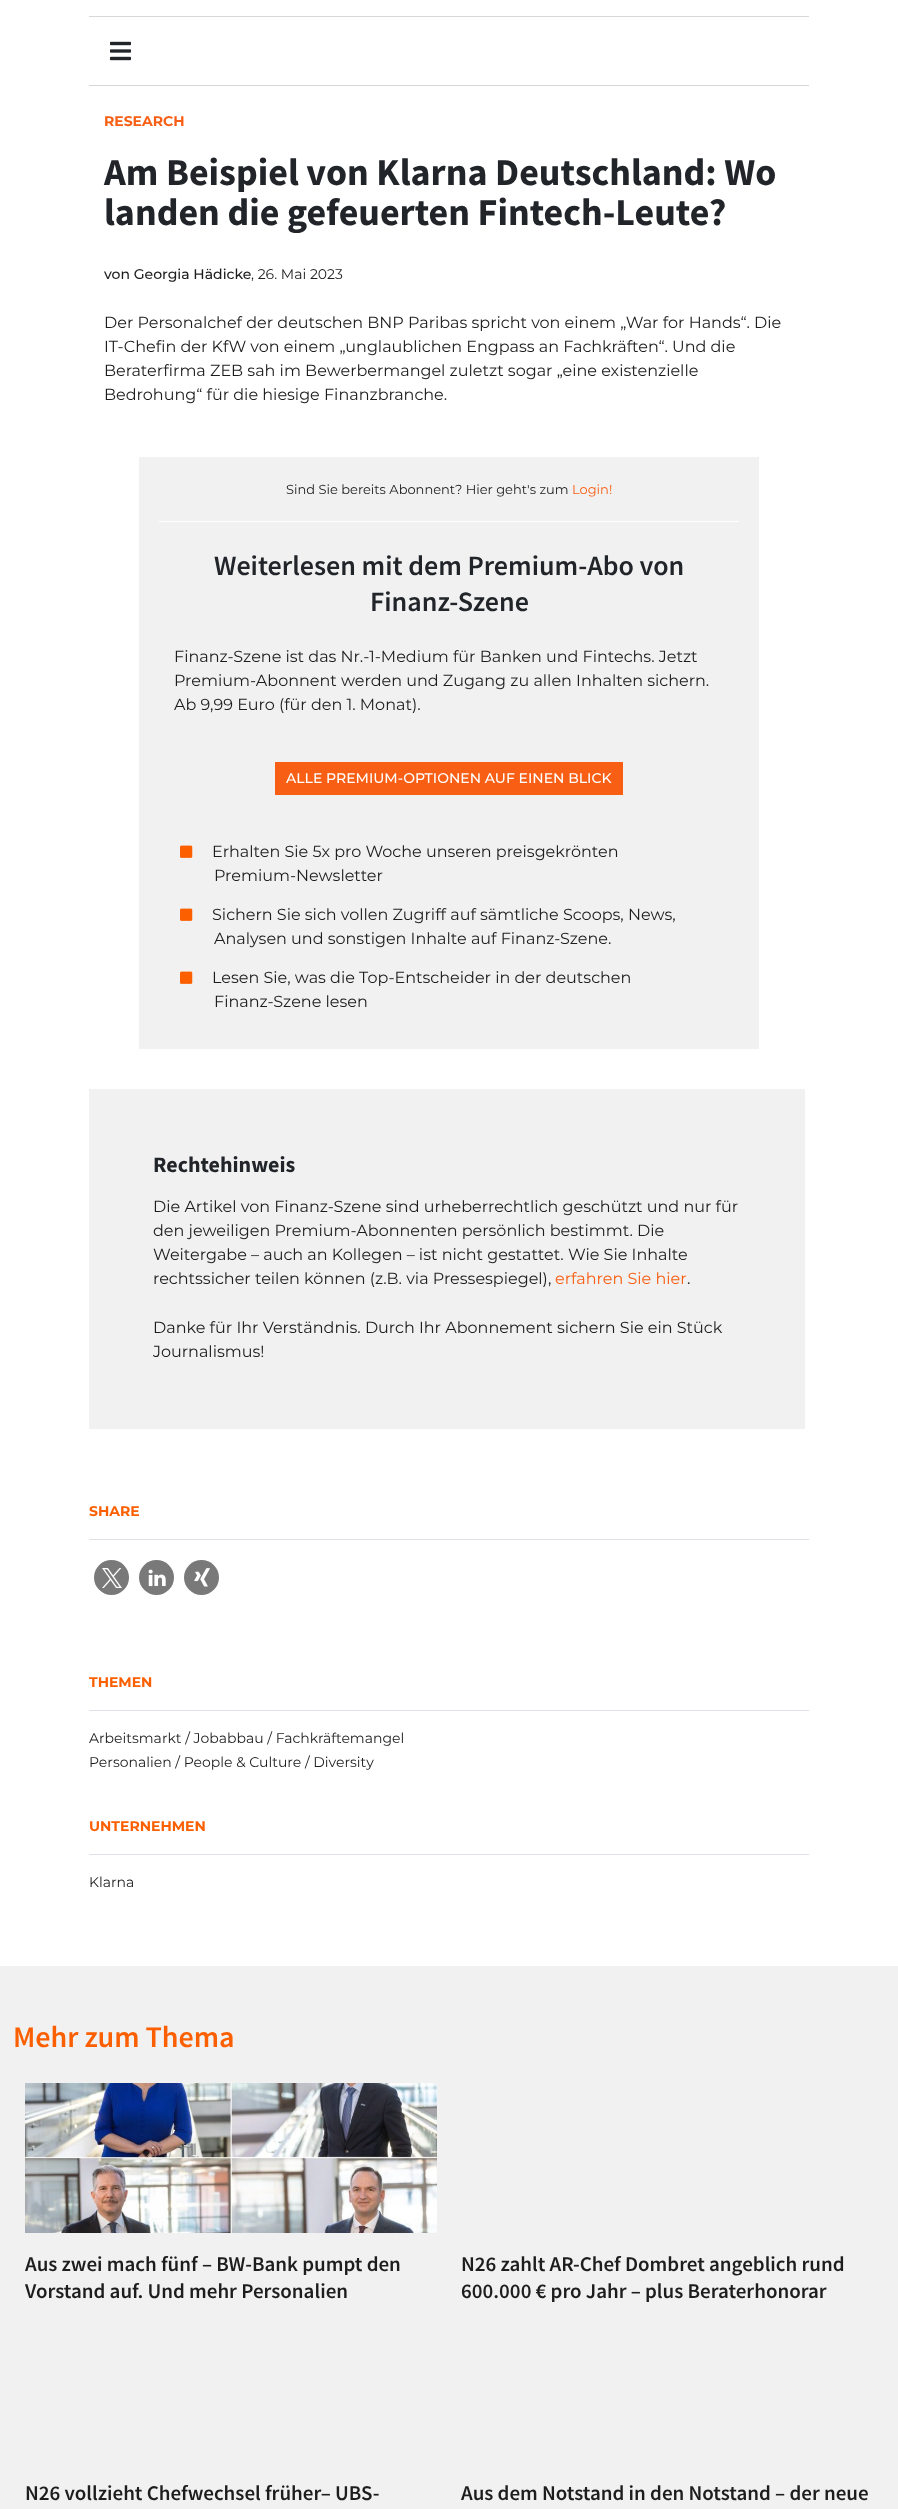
(async () => {
    const canvas = document.querySelector("canvas");
    canvas.width = 898;
    canvas.height = 2509;
    const context = canvas.getContext("2d");
    context.miterLimit = 4;
    context.fontKerning = "normal";
    function write(s, x, y, font, color) {
        context.font = font;
        context.fillStyle = color;
        context.fillText(s, x, y);
    }
    function block(x, y, w, h, color) {
        context.fillStyle = color;
        context.fillRect(x, y, w, h);
    }
    async function photo(src, x, y, w, h) {
        const img = new Image();
        img.src = src;
        await img.decode();
        context.drawImage(img, x, y, w, h);
    }

    block(0, 0, 898, 2509, "rgb(255, 255, 255)");
    block(89, 16, 720, 1, "rgb(215, 215, 215)");
    block(89, 85, 720, 1, "rgb(215, 215, 215)");
    await photo("media/1.png", 110, 41, 21, 20);
    write("RESEARCH", 104, 126, "100 14px Montserrat", "rgb(248, 95, 20)");
    write("Am Beispiel von Klarna Deutschland: Wo", 104, 185, "bold 38px Source Sans Pro", "rgb(33, 37, 41)");
    write("landen die gefeuerten Fintech-Leute?", 104, 225, "bold 38px Source Sans Pro", "rgb(33, 37, 41)");
    write("von Georgia Hädicke", 104, 279, "100 14px 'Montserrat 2'", "rgb(29, 29, 29)");
    write(", 26. Mai 2023", 251, 279, "100 14px 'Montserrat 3'", "rgb(29, 29, 29)");
    write("Der Personalchef der deutschen BNP Paribas spricht von einem „War for Hands“. Die", 104, 328, "100 16px 'Montserrat 3'", "rgb(29, 29, 29)");
    write("IT-Chefin der KfW von einem „unglaublichen Engpass an Fachkräften“. Und die", 104, 352, "100 16px 'Montserrat 3'", "rgb(29, 29, 29)");
    write("Beraterfirma ZEB sah im Bewerbermangel zuletzt sogar „eine existenzielle", 104, 376, "100 16px 'Montserrat 3'", "rgb(29, 29, 29)");
    write("Bedrohung“ für die hiesige Finanzbranche.", 104, 400, "100 16px 'Montserrat 3'", "rgb(29, 29, 29)");
    block(139, 457, 620, 592, "rgb(241, 241, 241)");
    write("Sind Sie bereits Abonnent? Hier geht's zum", 286, 494, "100 13px 'Montserrat 3'", "rgb(29, 29, 29)");
    write("Login!", 572, 494, "100 13px 'Montserrat 3'", "rgb(248, 95, 20)");
    block(159, 521, 580, 1, "rgb(255, 255, 255)");
    write("Weiterlesen mit dem Premium-Abo von", 214, 575, "600 28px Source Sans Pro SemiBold", "rgb(33, 37, 41)");
    write("Finanz-Szene", 370, 611, "600 28px Source Sans Pro SemiBold", "rgb(33, 37, 41)");
    write("Finanz-Szene ist das Nr.-1-Medium für Banken und Fintechs. Jetzt", 174, 662, "100 16px 'Montserrat 3'", "rgb(29, 29, 29)");
    write("Premium-Abonnent werden und Zugang zu allen Inhalten sichern.", 174, 686, "100 16px 'Montserrat 3'", "rgb(29, 29, 29)");
    write("Ab 9,99 Euro (für den 1. Monat).", 174, 710, "100 16px 'Montserrat 3'", "rgb(29, 29, 29)");
    block(275, 762, 348, 33, "rgb(248, 95, 20)");
    write("ALLE PREMIUM-OPTIONEN AUF EINEN BLICK", 286, 783, "100 14px 'Montserrat 2'", "rgb(255, 255, 255)");
    await photo("media/2.png", 180, 845, 13, 13);
    write("Erhalten Sie 5x pro Woche unseren preisgekrönten", 212, 857, "100 16px 'Montserrat 3'", "rgb(29, 29, 29)");
    write("Premium-Newsletter", 214, 881, "100 16px 'Montserrat 3'", "rgb(29, 29, 29)");
    await photo("media/2.png", 180, 908, 13, 13);
    write("Sichern Sie sich vollen Zugriff auf sämtliche Scoops, News,", 212, 920, "100 16px 'Montserrat 3'", "rgb(29, 29, 29)");
    write("Analysen und sonstigen Inhalte auf Finanz-Szene.", 214, 944, "100 16px 'Montserrat 3'", "rgb(29, 29, 29)");
    await photo("media/2.png", 180, 971, 13, 13);
    write("Lesen Sie, was die Top-Entscheider in der deutschen", 212, 983, "100 16px 'Montserrat 3'", "rgb(29, 29, 29)");
    write("Finanz-Szene lesen", 214, 1007, "100 16px 'Montserrat 3'", "rgb(29, 29, 29)");
    block(89, 1089, 716, 340, "rgb(241, 241, 241)");
    write("Rechtehinweis", 153, 1172, "bold 22px Source Sans Pro", "rgb(33, 37, 41)");
    write("Die Artikel von Finanz-Szene sind urheberrechtlich geschützt und nur für", 153, 1212, "100 16px 'Montserrat 3'", "rgb(29, 29, 29)");
    write("den jeweiligen Premium-Abonnenten persönlich bestimmt. Die", 153, 1236, "100 16px 'Montserrat 3'", "rgb(29, 29, 29)");
    write("Weitergabe – auch an Kollegen – ist nicht gestattet. Wie Sie Inhalte", 153, 1260, "100 16px 'Montserrat 3'", "rgb(29, 29, 29)");
    write("rechtssicher teilen können (z.B. via Pressespiegel),", 153, 1284, "100 16px 'Montserrat 3'", "rgb(29, 29, 29)");
    write("erfahren Sie hier", 555, 1284, "100 16px 'Montserrat 3'", "rgb(248, 95, 20)");
    write(".", 687, 1284, "100 16px 'Montserrat 3'", "rgb(29, 29, 29)");
    write("Danke für Ihr Verständnis. Durch Ihr Abonnement sichern Sie ein Stück", 153, 1333, "100 16px 'Montserrat 3'", "rgb(29, 29, 29)");
    write("Journalismus!", 153, 1357, "100 16px 'Montserrat 3'", "rgb(29, 29, 29)");
    block(89, 1539, 720, 1, "rgb(222, 226, 230)");
    write("SHARE", 89, 1516, "100 14px Montserrat", "rgb(252, 95, 0)");
    context.fillStyle = "rgb(121, 121, 121)";
    context.beginPath();
    context.arc(111.5, 1577.5, 17.5, 0, Math.PI * 2);
    context.fill();
    await photo("media/3.png", 102, 1568, 20, 20);
    context.beginPath();
    context.arc(156.5, 1577.5, 17.5, 0, Math.PI * 2);
    context.fill();
    await photo("media/4.png", 148, 1569, 18, 18);
    context.beginPath();
    context.arc(201.5, 1577.5, 17.5, 0, Math.PI * 2);
    context.fill();
    await photo("media/5.png", 194, 1568, 16, 19);
    block(89, 1710, 720, 1, "rgb(222, 226, 230)");
    write("THEMEN", 89, 1687, "100 14px Montserrat", "rgb(252, 95, 0)");
    write("Arbeitsmarkt / Jobabbau / Fachkräftemangel", 89, 1743, "100 14px 'Montserrat 3'", "rgb(29, 29, 29)");
    write("Personalien / People & Culture / Diversity", 89, 1767, "100 14px 'Montserrat 3'", "rgb(29, 29, 29)");
    block(89, 1854, 720, 1, "rgb(222, 226, 230)");
    write("UNTERNEHMEN", 89, 1831, "100 14px Montserrat", "rgb(252, 95, 0)");
    write("Klarna", 89, 1887, "100 14px 'Montserrat 3'", "rgb(29, 29, 29)");
    block(0, 1966, 898, 543, "rgb(241, 241, 241)");
    write("Mehr zum Thema", 13, 2047, "600 30px Source Sans Pro SemiBold", "rgb(252, 95, 0)");
    await photo("media/6.png", 25, 2083, 412, 150);
    write("Aus zwei mach fünf – BW-Bank pumpt den", 25, 2271, "600 21px Source Sans Pro SemiBold", "rgb(29, 29, 29)");
    write("Vorstand auf. Und mehr Personalien", 25, 2298, "600 21px Source Sans Pro SemiBold", "rgb(29, 29, 29)");
    write("N26 zahlt AR-Chef Dombret angeblich rund", 461, 2271, "600 21px Source Sans Pro SemiBold", "rgb(29, 29, 29)");
    write("600.000 € pro Jahr – plus Beraterhonorar", 461, 2298, "600 21px Source Sans Pro SemiBold", "rgb(29, 29, 29)");
    write("N26 vollzieht Chefwechsel früher– UBS-", 25, 2500, "600 21px Source Sans Pro SemiBold", "rgb(29, 29, 29)");
    write("Aus dem Notstand in den Notstand – der neue", 461, 2500, "600 21px Source Sans Pro SemiBold", "rgb(29, 29, 29)");
})();
